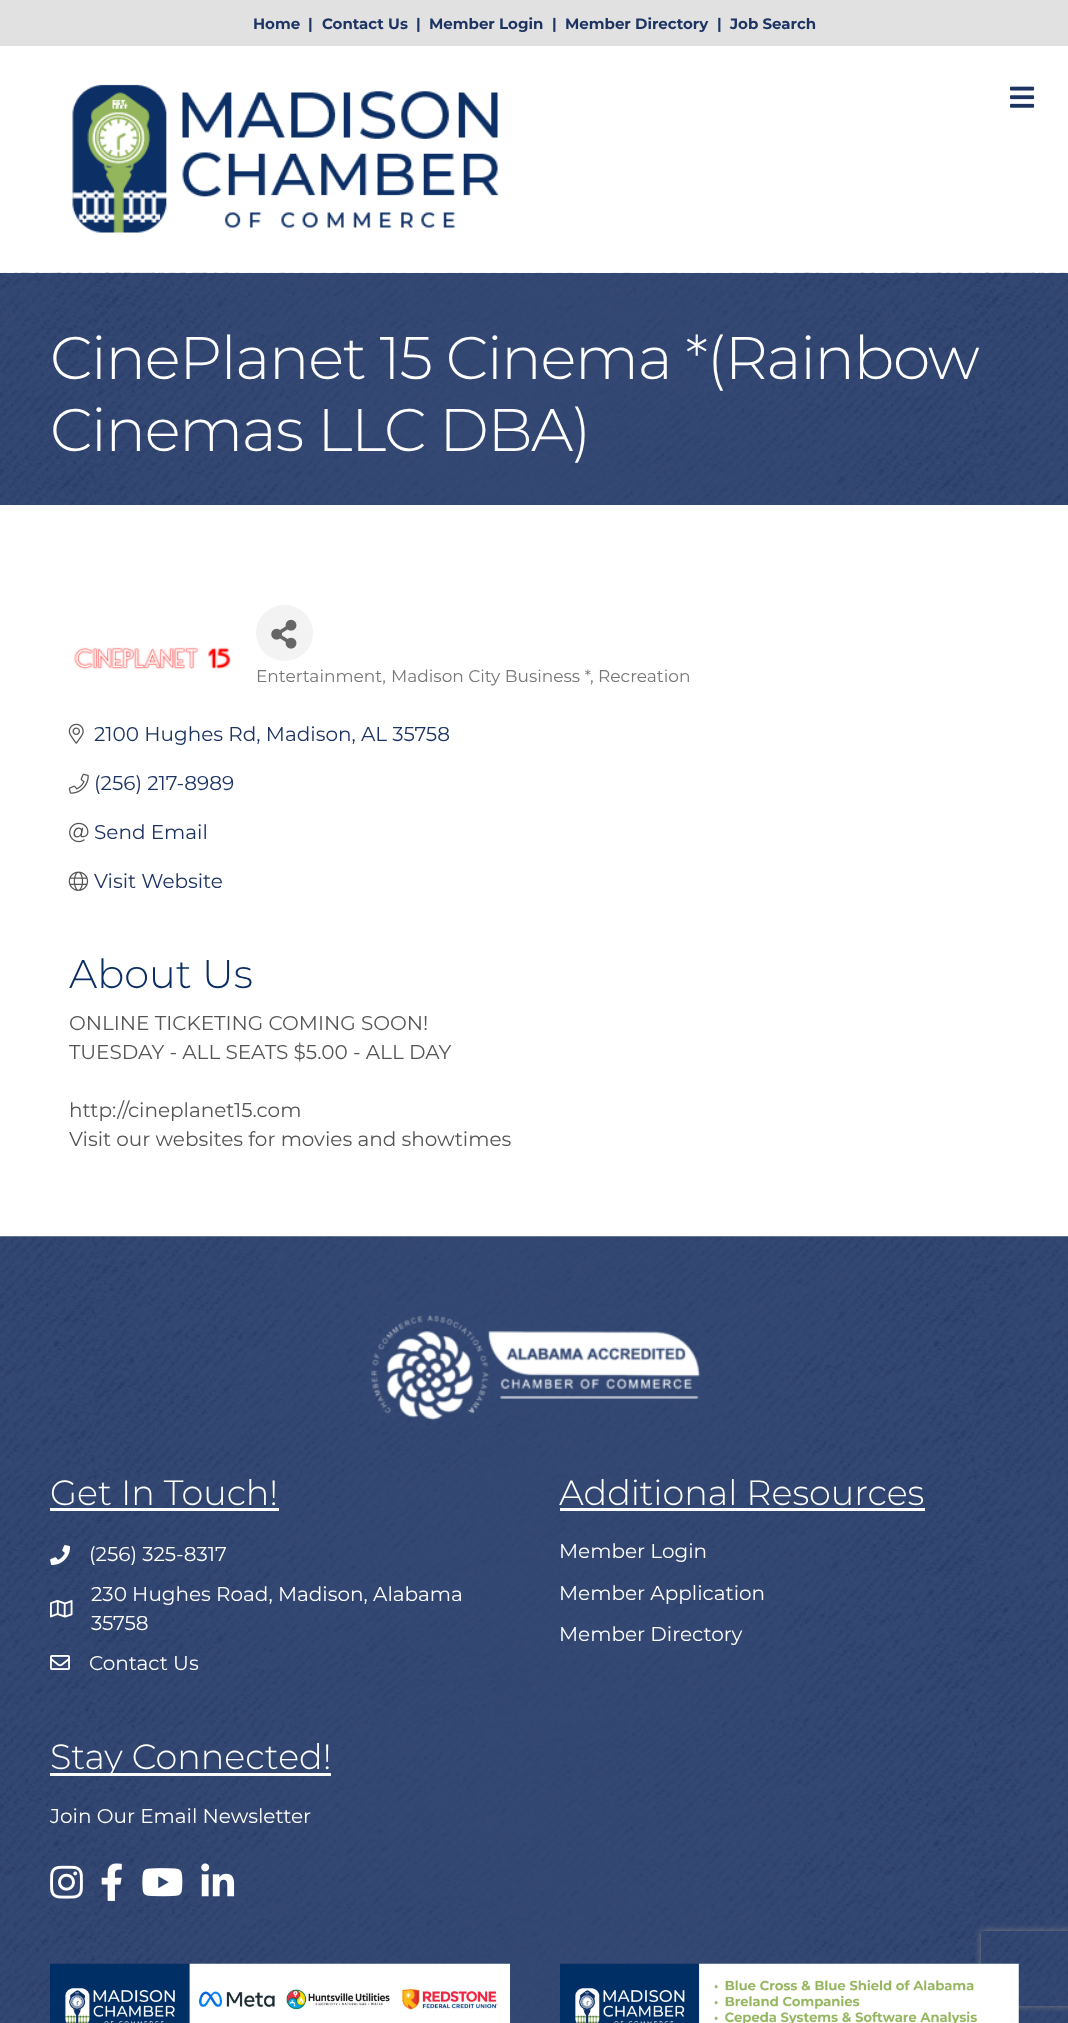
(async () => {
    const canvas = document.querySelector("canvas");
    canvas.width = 1068;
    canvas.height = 2023;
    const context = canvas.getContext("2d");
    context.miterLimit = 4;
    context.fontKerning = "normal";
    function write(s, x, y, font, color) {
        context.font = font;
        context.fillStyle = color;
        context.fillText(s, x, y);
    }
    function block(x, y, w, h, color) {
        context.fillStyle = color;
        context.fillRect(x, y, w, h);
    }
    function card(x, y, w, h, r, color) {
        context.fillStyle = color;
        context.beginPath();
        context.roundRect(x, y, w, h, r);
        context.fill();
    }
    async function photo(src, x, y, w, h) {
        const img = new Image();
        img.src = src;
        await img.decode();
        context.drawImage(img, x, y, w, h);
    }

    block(0, 0, 1068, 2023, "rgb(255, 255, 255)");
    block(0, 0, 1068, 46, "rgb(225, 225, 225)");
    write("Home", 253, 29, "bold 15px Montserrat", "rgb(29, 52, 99)");
    write("|", 308, 29, "bold 15px Montserrat", "rgb(29, 52, 99)");
    write("Contact Us", 322, 29, "bold 15px Montserrat", "rgb(29, 52, 99)");
    write("|", 416, 29, "bold 15px Montserrat", "rgb(29, 52, 99)");
    write("Member Login", 429, 29, "bold 15px Montserrat", "rgb(29, 52, 99)");
    write("|", 552, 29, "bold 15px Montserrat", "rgb(29, 52, 99)");
    write("Member Directory", 565, 29, "bold 15px Montserrat", "rgb(29, 52, 99)");
    write("|", 717, 29, "bold 15px Montserrat", "rgb(29, 52, 99)");
    write("Job Search", 730, 29, "bold 15px Montserrat", "rgb(29, 52, 99)");
    await photo("media/1.png", 72, 84, 427, 149);
    await photo("media/2.png", 1010, 86, 25, 22);
    await photo("media/3.png", 0, 272, 1068, 233);
    context.letterSpacing = "-1.25px";
    write("CinePlanet 15 Cinema *(Rainbow", 50, 379, "300 60px Montserrat", "rgb(255, 255, 255)");
    write("Cinemas LLC DBA)", 50, 451, "300 60px Montserrat", "rgb(255, 255, 255)");
    await photo("media/4.png", 74, 647, 157, 23);
    card(256, 605, 57, 56, 28, "rgb(243, 243, 243)");
    await photo("media/5.png", 271, 619, 26, 30);
    context.letterSpacing = "0px";
    write("Entertainment,", 256, 682, "17px Montserrat", "rgb(119, 119, 119)");
    write("Madison City Business *", 391, 682, "17px Montserrat", "rgb(119, 119, 119)");
    write(", Recreation", 590, 682, "17px Montserrat", "rgb(119, 119, 119)");
    await photo("media/6.png", 68, 723, 16, 21);
    write("2100 Hughes Rd, Madison, AL 35758", 94, 741, "20px Montserrat", "rgb(29, 52, 99)");
    await photo("media/7.png", 68, 773, 21, 21);
    write("(256) 217-8989", 94, 790, "20px Montserrat", "rgb(29, 52, 99)");
    await photo("media/8.png", 69, 822, 20, 21);
    write("Send Email", 94, 839, "20px Montserrat", "rgb(29, 52, 99)");
    await photo("media/9.png", 68, 871, 21, 20);
    write("Visit Website", 94, 888, "20px Montserrat", "rgb(29, 52, 99)");
    write("About Us", 69, 988, "300 40px Montserrat", "rgb(12, 46, 101)");
    write("ONLINE TICKETING COMING SOON!", 69, 1030, "20px Montserrat", "rgb(85, 85, 85)");
    write("TUESDAY - ALL SEATS $5.00 - ALL DAY", 69, 1059, "20px Montserrat", "rgb(85, 85, 85)");
    write("http://cineplanet15.com", 69, 1117, "20px Montserrat", "rgb(85, 85, 85)");
    write("Visit our websites for movies and showtimes", 69, 1146, "20px Montserrat", "rgb(85, 85, 85)");
    await photo("media/10.png", 0, 1236, 1068, 787);
    await photo("media/11.png", 371, 1315, 330, 106);
    write("Get In Touch!", 50, 1505, "300 35px Montserrat", "rgb(255, 255, 255)");
    block(50, 1508, 229, 3, "rgb(255, 255, 255)");
    await photo("media/12.png", 50, 1545, 20, 20);
    write("(256) 325-8317", 89, 1561, "20px Montserrat", "rgb(255, 255, 255)");
    await photo("media/13.png", 50, 1600, 23, 18);
    write("230 Hughes Road, Madison, Alabama", 91, 1601, "20px Montserrat", "rgb(255, 255, 255)");
    write("35758", 91, 1630, "20px Montserrat", "rgb(255, 255, 255)");
    await photo("media/14.png", 50, 1655, 20, 15);
    write("Contact Us", 89, 1670, "20px Montserrat", "rgb(255, 255, 255)");
    write("Additional Resources", 559, 1505, "300 35px Montserrat", "rgb(255, 255, 255)");
    block(560, 1508, 365, 3, "rgb(255, 255, 255)");
    write("Member Login", 559, 1558, "20px Montserrat", "rgb(255, 255, 255)");
    write("Member Application", 559, 1600, "20px Montserrat", "rgb(255, 255, 255)");
    write("Member Directory", 559, 1641, "20px Montserrat", "rgb(255, 255, 255)");
    block(50, 1773, 281, 3, "rgb(255, 255, 255)");
    write("Stay Connected!", 50, 1769, "300 35px Montserrat", "rgb(255, 255, 255)");
    write("Join Our Email Newsletter", 50, 1823, "20px Montserrat", "rgb(255, 255, 255)");
    await photo("media/15.png", 50, 1865, 33, 34);
    await photo("media/16.png", 101, 1863, 21, 38);
    await photo("media/17.png", 142, 1868, 41, 29);
    await photo("media/18.png", 201, 1863, 34, 34);
    await photo("media/19.png", 50, 1963, 460, 60);
    context.save();
    context.beginPath();
    context.moveTo(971, 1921);
    context.lineTo(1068, 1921);
    context.lineTo(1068, 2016);
    context.lineTo(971, 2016);
    context.closePath();
    context.moveTo(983.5, 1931);
    context.lineTo(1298.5, 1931);
    context.bezierCurveTo(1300, 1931, 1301, 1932, 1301, 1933.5);
    context.lineTo(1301, 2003.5);
    context.bezierCurveTo(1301, 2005, 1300, 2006, 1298.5, 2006);
    context.lineTo(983.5, 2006);
    context.bezierCurveTo(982, 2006, 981, 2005, 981, 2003.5);
    context.lineTo(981, 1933.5);
    context.bezierCurveTo(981, 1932, 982, 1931, 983.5, 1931);
    context.closePath();
    context.clip("evenodd");
    context.fillStyle = "rgb(128, 128, 128)";
    context.filter = "blur(3px)";
    context.beginPath();
    context.roundRect(981, 1931, 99, 75, 2.5);
    context.fill();
    context.filter = "none";
    context.restore();
    await photo("media/20.png", 560, 1963, 459, 60);
})();
